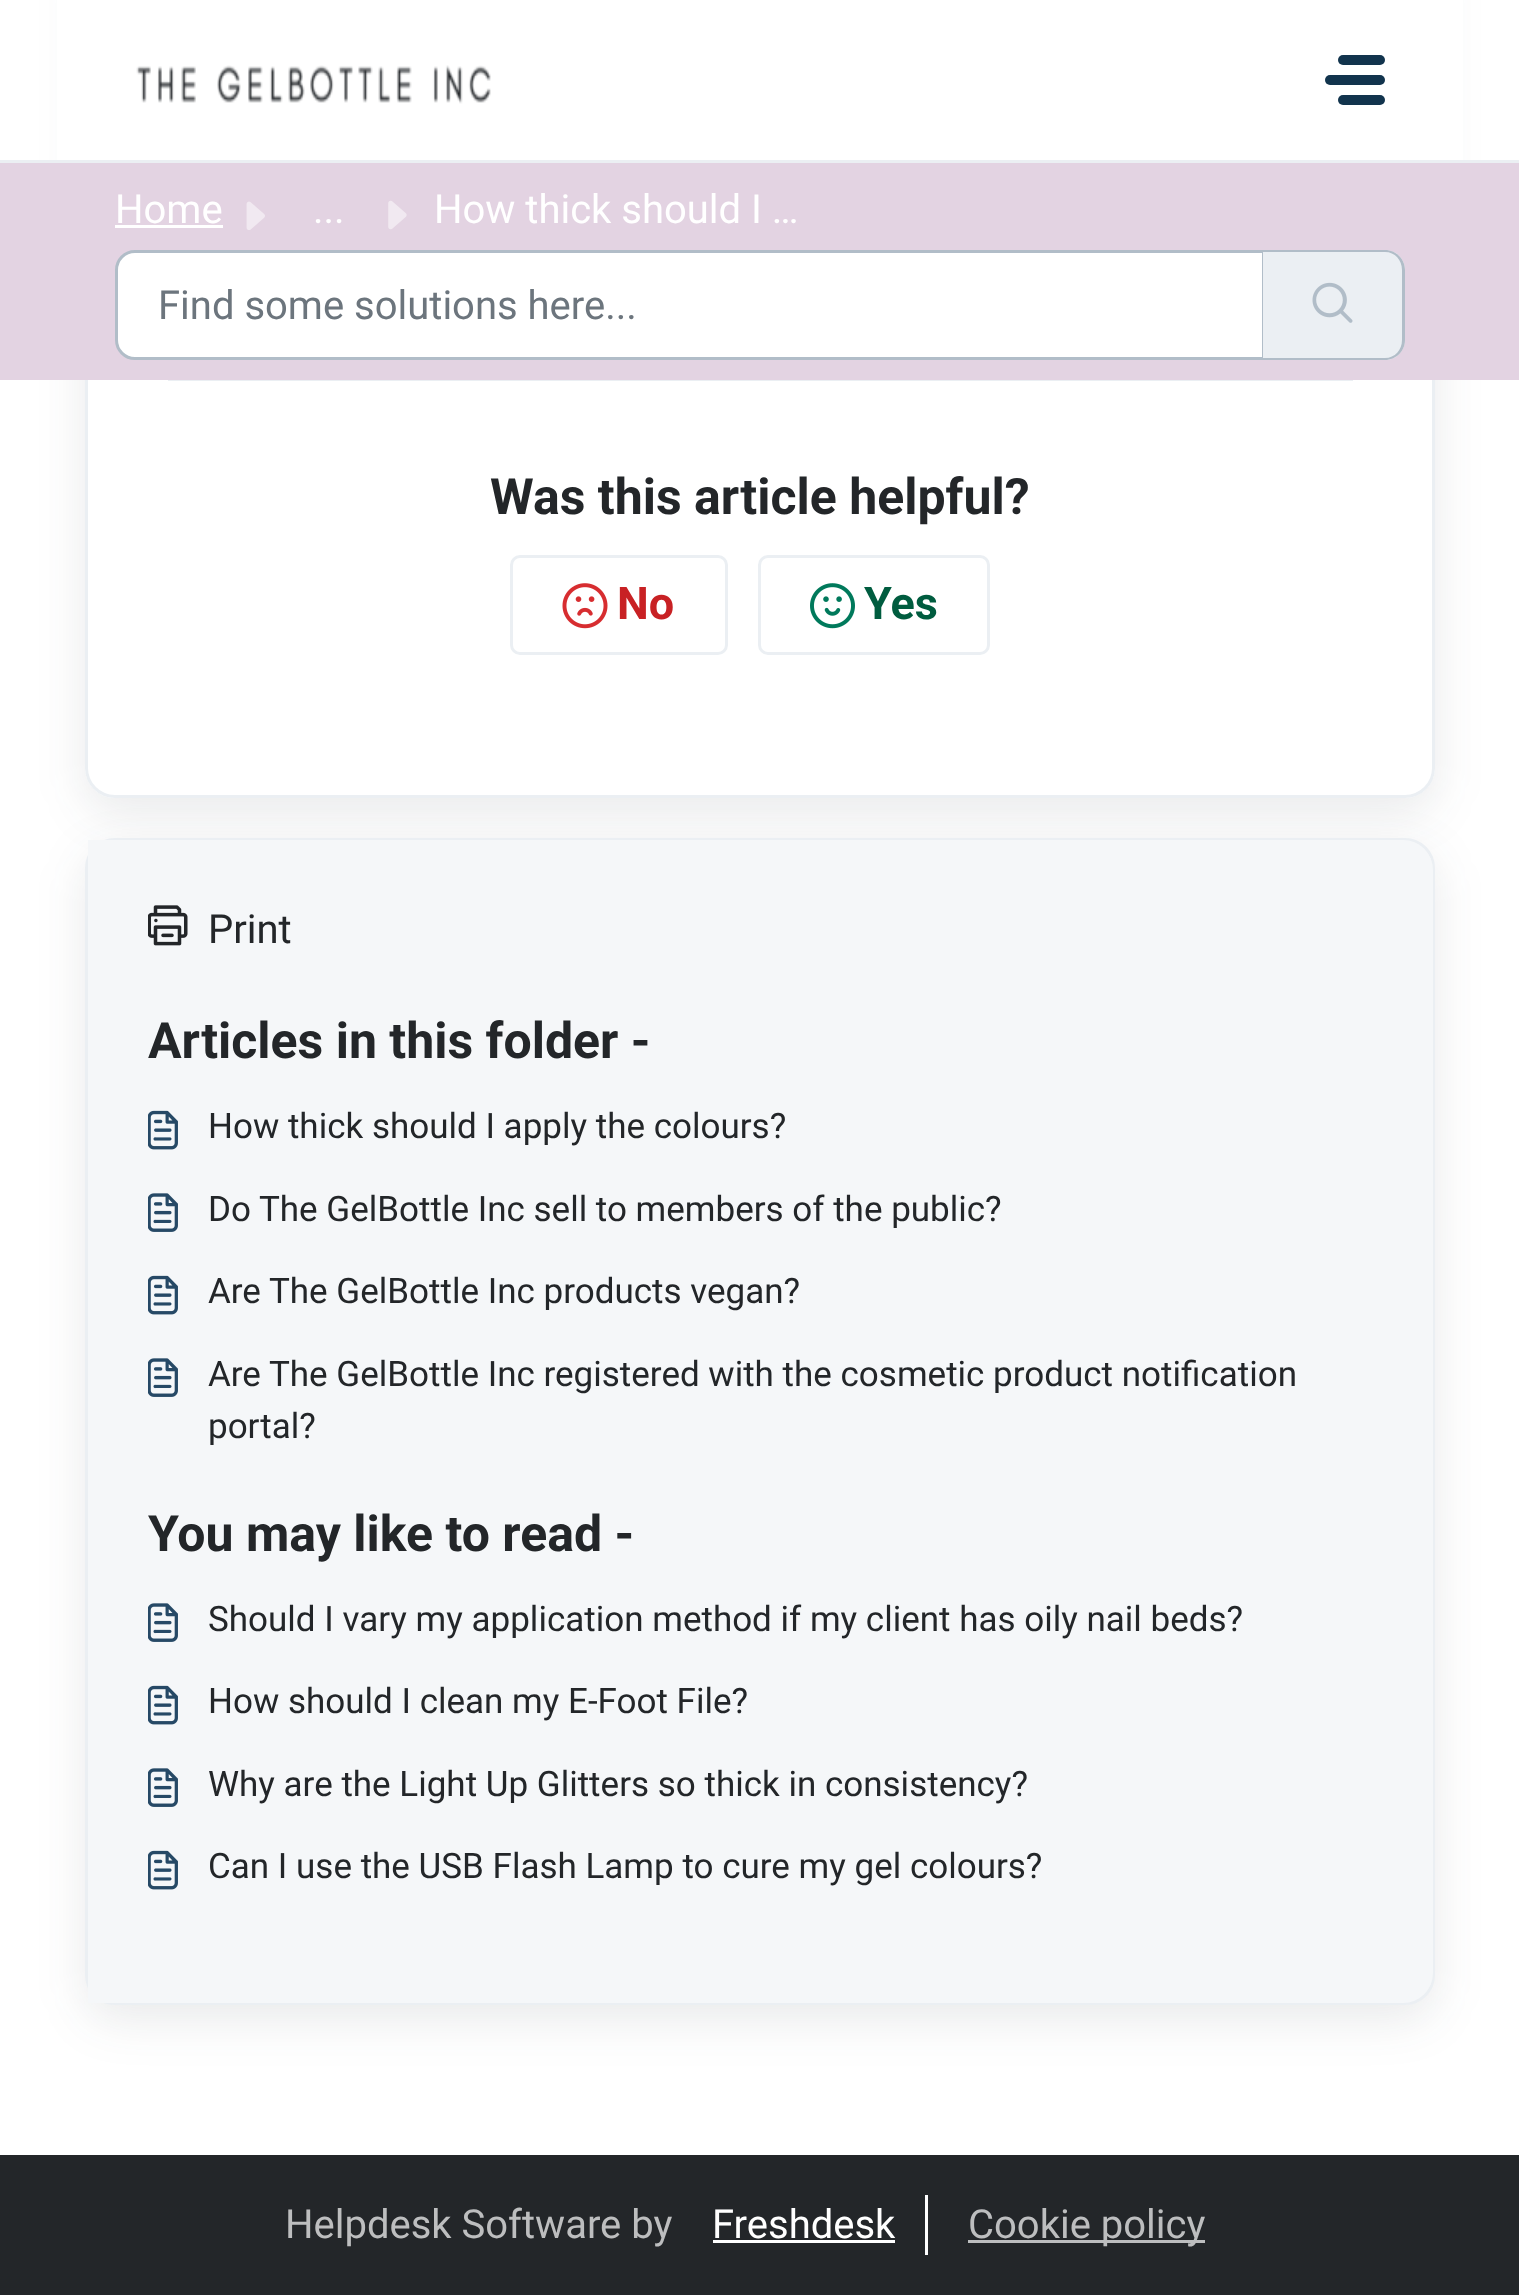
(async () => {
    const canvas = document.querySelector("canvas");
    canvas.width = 1519;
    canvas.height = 2295;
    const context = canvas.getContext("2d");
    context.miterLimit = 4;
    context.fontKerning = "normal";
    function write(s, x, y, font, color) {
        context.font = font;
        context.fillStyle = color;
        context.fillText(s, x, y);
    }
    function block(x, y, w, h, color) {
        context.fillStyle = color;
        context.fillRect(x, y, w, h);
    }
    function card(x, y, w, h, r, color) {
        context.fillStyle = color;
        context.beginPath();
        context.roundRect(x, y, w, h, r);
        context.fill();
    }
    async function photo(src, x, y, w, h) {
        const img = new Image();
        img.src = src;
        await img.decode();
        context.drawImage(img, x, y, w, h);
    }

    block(0, 0, 1519, 2295, "rgb(255, 255, 255)");
    context.save();
    context.beginPath();
    context.moveTo(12, 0);
    context.lineTo(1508, 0);
    context.lineTo(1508, 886);
    context.lineTo(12, 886);
    context.closePath();
    context.moveTo(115, -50);
    context.lineTo(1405, -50);
    context.bezierCurveTo(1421.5, -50, 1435, -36.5, 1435, -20);
    context.lineTo(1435, 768);
    context.bezierCurveTo(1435, 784.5, 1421.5, 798, 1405, 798);
    context.lineTo(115, 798);
    context.bezierCurveTo(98.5, 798, 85, 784.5, 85, 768);
    context.lineTo(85, -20);
    context.bezierCurveTo(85, -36.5, 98.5, -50, 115, -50);
    context.closePath();
    context.clip("evenodd");
    context.fillStyle = "rgba(39, 49, 58, 0.1)";
    context.filter = "blur(24px)";
    context.beginPath();
    context.roundRect(85, -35, 1350, 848, 30);
    context.fill();
    context.filter = "none";
    context.restore();
    context.beginPath();
    context.roundRect(86.5, -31.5, 1347, 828, 28.5);
    context.strokeStyle = "rgb(235, 239, 243)";
    context.lineWidth = 3;
    context.stroke();
    block(57, 0, 1406, 160, "rgb(255, 255, 255)");
    block(0, 160, 1519, 3, "rgb(235, 239, 243)");
    await photo("media/1.png", 136, 65, 355, 39);
    card(1338, 55, 47, 10, 5, "rgb(18, 52, 77)");
    card(1325, 75, 60, 10, 5, "rgb(18, 52, 77)");
    card(1338, 95, 47, 10, 5, "rgb(18, 52, 77)");
    block(0, 163, 1519, 217, "rgb(227, 211, 226)");
    write("Home", 115, 223, "40px Roboto", "rgb(255, 255, 255)");
    block(115, 225, 108, 3, "rgb(255, 255, 255)");
    await photo("media/2.png", 246, 201, 19, 29);
    write("...", 313, 223, "40px Roboto", "rgb(255, 255, 255)");
    await photo("media/3.png", 388, 200, 19, 30);
    write("How thick should I …", 434, 223, "40px Roboto", "rgb(255, 255, 255)");
    context.beginPath();
    context.roundRect(116.5, 251.5, 1147, 107, [18.5, 0, 0, 18.5]);
    context.fill();
    context.strokeStyle = "rgb(177, 189, 200)";
    context.stroke();
    write("Find some solutions here...", 158, 319, "40px Roboto", "rgb(108, 117, 125)");
    context.fillStyle = "rgb(235, 239, 243)";
    context.beginPath();
    context.roundRect(1263, 250, 142, 110, [0, 20, 20, 0]);
    context.fill();
    context.fillStyle = "rgb(177, 189, 200)";
    context.beginPath();
    context.moveTo(1262, 250);
    context.lineTo(1385, 250);
    context.bezierCurveTo(1396, 250, 1405, 259, 1405, 270);
    context.lineTo(1405, 340);
    context.bezierCurveTo(1405, 351, 1396, 360, 1385, 360);
    context.lineTo(1262, 360);
    context.closePath();
    context.moveTo(1262, 252);
    context.lineTo(1385, 252);
    context.bezierCurveTo(1395, 252, 1402, 260, 1402, 270);
    context.lineTo(1402, 340);
    context.bezierCurveTo(1402, 350, 1395, 358, 1385, 358);
    context.lineTo(1262, 358);
    context.closePath();
    context.fill("evenodd");
    await photo("media/4.png", 1312, 282, 41, 41);
    block(168, 380, 1185, 1, "rgb(235, 239, 243)");
    write("Was this article helpful?", 490, 514, "bold 50px Roboto", "rgb(35, 38, 41)");
    context.beginPath();
    context.roundRect(511.5, 556.5, 215, 97, 8.5);
    context.strokeStyle = "rgb(235, 239, 243)";
    context.stroke();
    await photo("media/5.png", 562, 583, 46, 46);
    write("No", 617, 619, "bold 45px Roboto", "rgb(200, 33, 36)");
    context.beginPath();
    context.roundRect(759.5, 556.5, 229, 97, 8.5);
    context.stroke();
    await photo("media/6.png", 810, 583, 45, 46);
    write("Yes", 864, 619, "bold 45px Roboto", "rgb(0, 92, 63)");
    context.fillStyle = "rgba(39, 49, 58, 0.1)";
    context.filter = "blur(24px)";
    context.beginPath();
    context.roundRect(85, 853, 1350, 1167, 30);
    context.fill();
    context.filter = "none";
    context.beginPath();
    context.roundRect(86.5, 839.5, 1347, 1164, 28.5);
    context.stroke();
    context.fillStyle = "rgb(245, 247, 249)";
    context.beginPath();
    context.roundRect(88, 840, 1345, 1163, [0, 30, 30, 0]);
    context.fill();
    await photo("media/7.png", 148, 905, 40, 41);
    write("Print", 208, 943, "40px Roboto", "rgb(35, 38, 41)");
    write("Articles in this folder -", 148, 1058, "bold 50px Roboto", "rgb(35, 38, 41)");
    await photo("media/8.png", 148, 1110, 30, 40);
    write("How thick should I apply the colours?", 208, 1138, "35px Roboto", "rgb(35, 38, 41)");
    await photo("media/9.png", 148, 1193, 30, 39);
    write("Do The GelBottle Inc sell to members of the public?", 208, 1221, "35px Roboto", "rgb(35, 38, 41)");
    await photo("media/8.png", 148, 1275, 30, 40);
    write("Are The GelBottle Inc products vegan?", 208, 1303, "35px Roboto", "rgb(35, 38, 41)");
    await photo("media/9.png", 148, 1358, 30, 39);
    write("Are The GelBottle Inc registered with the cosmetic product notification", 208, 1386, "35px Roboto", "rgb(35, 38, 41)");
    write("portal?", 208, 1438, "35px Roboto", "rgb(35, 38, 41)");
    write("You may like to read -", 148, 1551, "bold 50px Roboto", "rgb(35, 38, 41)");
    await photo("media/9.png", 148, 1603, 30, 39);
    write("Should I vary my application method if my client has oily nail beds?", 208, 1631, "35px Roboto", "rgb(35, 38, 41)");
    await photo("media/8.png", 148, 1685, 30, 40);
    write("How should I clean my E-Foot File?", 208, 1713, "35px Roboto", "rgb(35, 38, 41)");
    await photo("media/9.png", 148, 1768, 30, 39);
    write("Why are the Light Up Glitters so thick in consistency?", 208, 1796, "35px Roboto", "rgb(35, 38, 41)");
    await photo("media/8.png", 148, 1850, 30, 40);
    write("Can I use the USB Flash Lamp to cure my gel colours?", 208, 1878, "35px Roboto", "rgb(35, 38, 41)");
    block(0, 2155, 1519, 140, "rgb(35, 38, 41)");
    write("Helpdesk Software by", 285, 2238, "40px Roboto", "rgb(189, 190, 191)");
    block(925, 2195, 3, 60, "rgb(255, 255, 255)");
    write("Freshdesk", 712, 2238, "40px Roboto", "rgb(255, 255, 255)");
    block(713, 2240, 182, 3, "rgb(255, 255, 255)");
    block(968, 2240, 237, 3, "rgb(189, 190, 191)");
    write("Cookie policy", 968, 2238, "40px Roboto", "rgb(189, 190, 191)");
})();
